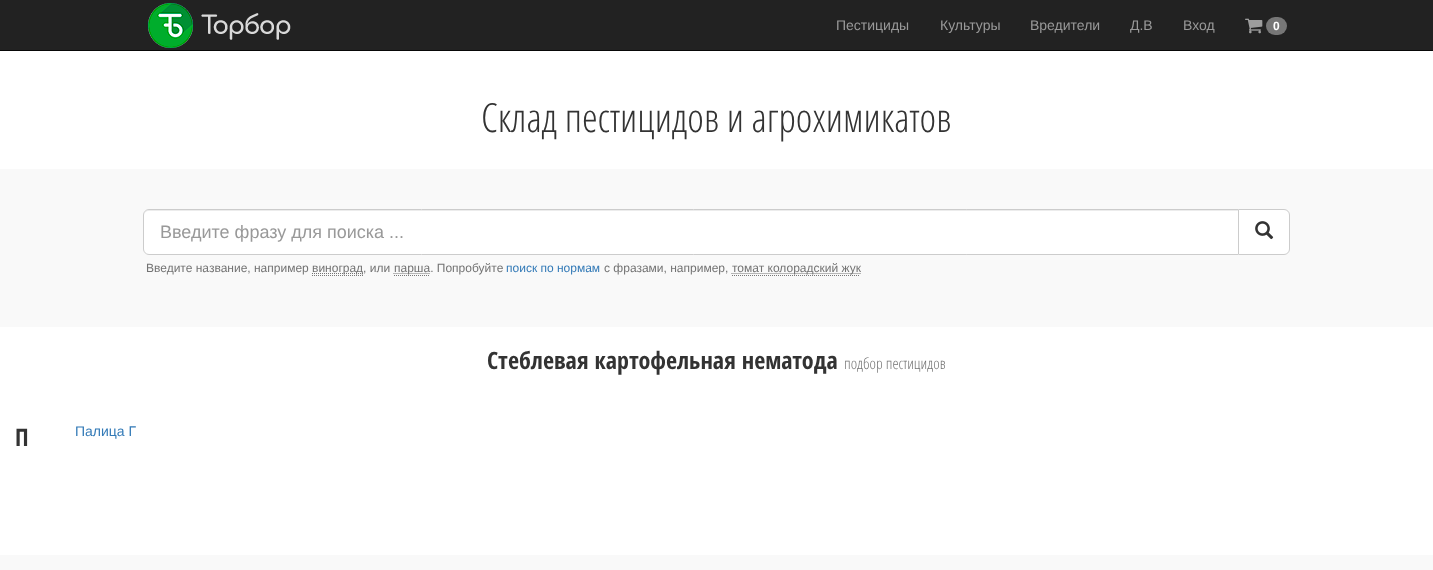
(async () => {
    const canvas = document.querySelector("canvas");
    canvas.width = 1433;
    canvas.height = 570;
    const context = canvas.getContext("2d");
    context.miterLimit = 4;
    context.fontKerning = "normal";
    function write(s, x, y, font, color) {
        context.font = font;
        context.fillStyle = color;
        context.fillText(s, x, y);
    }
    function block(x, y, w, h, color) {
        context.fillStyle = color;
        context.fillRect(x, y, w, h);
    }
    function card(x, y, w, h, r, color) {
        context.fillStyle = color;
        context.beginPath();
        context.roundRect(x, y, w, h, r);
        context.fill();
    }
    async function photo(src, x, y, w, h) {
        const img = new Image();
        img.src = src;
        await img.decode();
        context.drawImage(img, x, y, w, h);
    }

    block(0, 0, 1433, 570, "rgb(255, 255, 255)");
    block(0, 0, 1433, 50, "rgb(34, 34, 34)");
    block(0, 50, 1433, 1, "rgb(8, 8, 8)");
    await photo("media/1.png", 148, 3, 143, 45);
    write("Пестициды", 836, 30, "14px Liberation Sans", "rgb(153, 153, 153)");
    write("Культуры", 940, 30, "14px Liberation Sans", "rgb(153, 153, 153)");
    write("Вредители", 1030, 30, "14px Liberation Sans", "rgb(153, 153, 153)");
    write("Д.В", 1130, 30, "14px Liberation Sans", "rgb(153, 153, 153)");
    write("Вход", 1183, 30, "14px Liberation Sans", "rgb(153, 153, 153)");
    await photo("media/2.png", 1245, 18, 18, 16);
    card(1266, 17, 21, 18, 9, "rgb(119, 119, 119)");
    write("0", 1273, 30, "bold 12px Liberation Sans", "rgb(255, 255, 255)");
    write("Склад пестицидов и агрохимикатов", 481, 132, "300 40px Open Sans Condensed", "rgb(51, 51, 51)");
    block(0, 169, 1433, 158, "rgb(249, 249, 249)");
    context.fillStyle = "rgb(255, 255, 255)";
    context.beginPath();
    context.roundRect(1238.5, 209.5, 51, 45, [0, 5.5, 5.5, 0]);
    context.fill();
    context.strokeStyle = "rgb(204, 204, 204)";
    context.stroke();
    context.beginPath();
    context.roundRect(143, 209, 1096, 46, [6, 0, 0, 6]);
    context.fill();
    context.fillStyle = "rgb(236, 236, 236)";
    context.beginPath();
    context.moveTo(149, 211);
    context.lineTo(1238, 211);
    context.lineTo(1238, 210);
    context.lineTo(149, 210);
    context.bezierCurveTo(146, 210, 144, 213, 144, 216);
    context.bezierCurveTo(144, 213, 146, 211, 149, 211);
    context.closePath();
    context.fill();
    context.beginPath();
    context.roundRect(143.5, 209.5, 1095, 45, [5.5, 0, 0, 5.5]);
    context.stroke();
    write("Введите фразу для поиска ...", 160, 238, "18px Liberation Sans", "rgb(153, 153, 153)");
    await photo("media/3.png", 1255, 221, 19, 19);
    write("Введите название, например", 146, 272, "12px Liberation Sans", "rgb(115, 115, 115)");
    context.beginPath();
    context.moveTo(312, 273.5);
    context.lineTo(363.5, 273.5);
    context.strokeStyle = "rgb(115, 115, 115)";
    context.setLineDash([1, 1]);
    context.stroke();
    write("виноград, или", 312, 272, "12px Liberation Sans", "rgb(115, 115, 115)");
    context.beginPath();
    context.moveTo(312, 275.5);
    context.lineTo(363, 275.5);
    context.strokeStyle = "rgb(119, 119, 119)";
    context.stroke();
    context.beginPath();
    context.moveTo(393.5, 273.5);
    context.lineTo(430, 273.5);
    context.strokeStyle = "rgb(115, 115, 115)";
    context.stroke();
    write("парша. Попробуйте", 394, 272, "12px Liberation Sans", "rgb(115, 115, 115)");
    context.beginPath();
    context.moveTo(394, 275.5);
    context.lineTo(430, 275.5);
    context.strokeStyle = "rgb(119, 119, 119)";
    context.stroke();
    write("поиск по нормам", 506, 272, "12px Liberation Sans", "rgb(51, 122, 183)");
    write("с фразами, например,", 604, 272, "12px Liberation Sans", "rgb(115, 115, 115)");
    context.beginPath();
    context.moveTo(731.5, 273.5);
    context.lineTo(860.5, 273.5);
    context.strokeStyle = "rgb(115, 115, 115)";
    context.stroke();
    write("томат колорадский жук", 732, 272, "12px Liberation Sans", "rgb(115, 115, 115)");
    context.beginPath();
    context.moveTo(732, 275.5);
    context.lineTo(860, 275.5);
    context.strokeStyle = "rgb(119, 119, 119)";
    context.stroke();
    write("Стеблевая картофельная нематода", 487, 369, "bold 24px Open Sans Condensed", "rgb(51, 51, 51)");
    write("подбор пестицидов", 844, 369, "300 15.5px Open Sans Condensed", "rgb(115, 115, 115)");
    write("П", 15, 446, "bold 24px Open Sans Condensed", "rgb(51, 51, 51)");
    write("Палица Г", 75, 436, "14px Liberation Sans", "rgb(51, 122, 183)");
    block(0, 555, 1433, 15, "rgb(249, 249, 249)");
})();
